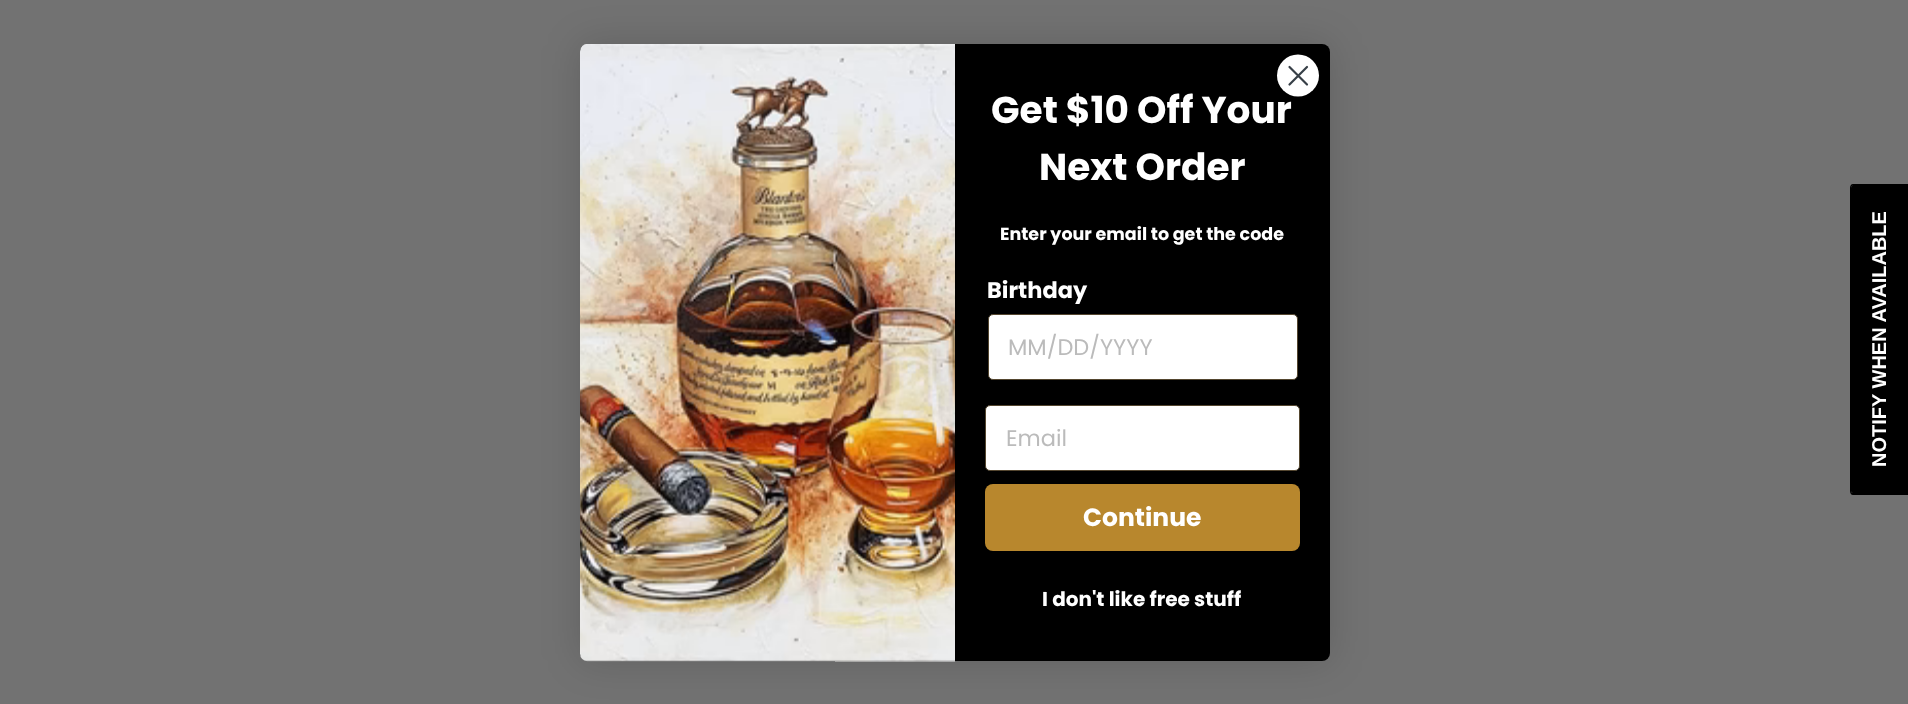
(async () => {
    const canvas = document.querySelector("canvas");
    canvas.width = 1908;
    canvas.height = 704;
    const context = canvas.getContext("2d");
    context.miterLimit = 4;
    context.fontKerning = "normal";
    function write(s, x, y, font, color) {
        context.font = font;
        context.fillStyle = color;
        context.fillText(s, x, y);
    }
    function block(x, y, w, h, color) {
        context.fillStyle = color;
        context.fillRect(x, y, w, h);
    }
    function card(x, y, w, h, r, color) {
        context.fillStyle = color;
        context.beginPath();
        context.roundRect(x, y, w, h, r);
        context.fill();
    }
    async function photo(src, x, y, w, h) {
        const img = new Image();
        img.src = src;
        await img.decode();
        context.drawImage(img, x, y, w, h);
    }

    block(0, 0, 1908, 704, "rgb(114, 114, 114)");
    context.fillStyle = "rgba(0, 0, 0, 0.15)";
    context.filter = "blur(19px)";
    context.beginPath();
    context.roundRect(580, 44, 750, 617, 8);
    context.fill();
    context.filter = "none";
    card(580, 44, 750, 617, 8, "rgb(0, 0, 0)");
    context.fillStyle = "rgb(255, 255, 255)";
    context.beginPath();
    context.arc(1298, 75.5, 21, 0, Math.PI * 2);
    context.fill();
    context.beginPath();
    context.moveTo(1289.5, 67);
    context.lineTo(1307, 84.5);
    context.moveTo(1289.5, 84.5);
    context.lineTo(1307, 67);
    context.closePath();
    context.strokeStyle = "rgb(55, 63, 71)";
    context.lineWidth = 2.2;
    context.lineCap = "round";
    context.lineJoin = "round";
    context.stroke();
    await photo("media/1.png", 580, 44, 375, 618);
    write("Get $10 Off Your", 991, 123, "bold 37.5px Poppins", "rgb(255, 255, 255)");
    write("Next Order", 1039, 180, "bold 37.5px Poppins", "rgb(255, 255, 255)");
    write("Enter your email to get the code", 1000, 240, "bold 17.5px Poppins", "rgb(255, 255, 255)");
    write("Birthday", 987, 298, "bold 22.5px Poppins", "rgb(255, 255, 255)");
    context.beginPath();
    context.roundRect(988.5, 314.5, 309, 65, 4.5);
    context.fill();
    context.strokeStyle = "rgb(84, 70, 47)";
    context.lineWidth = 1;
    context.lineJoin = "miter";
    context.stroke();
    write("MM/DD/YYYY", 1008, 355, "22.5px Poppins", "rgb(187, 187, 187)");
    context.fillStyle = "rgb(255, 255, 255)";
    context.beginPath();
    context.roundRect(985.5, 405.5, 314, 65, 4.5);
    context.fill();
    context.stroke();
    write("Email", 1006, 446, "22.5px Poppins", "rgb(187, 187, 187)");
    card(985, 484, 315, 67, 8, "rgb(184, 135, 45)");
    write("Continue", 1083, 526, "bold 25px Poppins", "rgb(255, 255, 255)");
    write("I don't like free stuff", 1042, 606, "bold 20px Poppins", "rgb(255, 255, 255)");
    context.fillStyle = "rgb(0, 0, 0)";
    context.beginPath();
    context.moveTo(1851, 491);
    context.lineTo(1851, 188);
    context.bezierCurveTo(1851, 187, 1852, 185, 1853, 185);
    context.lineTo(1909, 185);
    context.lineTo(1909, 493);
    context.lineTo(1853, 493);
    context.bezierCurveTo(1852, 493, 1851, 492, 1851, 491);
    context.closePath();
    context.fill();
    context.beginPath();
    context.moveTo(1850, 491);
    context.lineTo(1850, 188);
    context.bezierCurveTo(1850, 186, 1851, 184, 1853, 184);
    context.lineTo(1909, 184);
    context.lineTo(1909, 495);
    context.lineTo(1853, 495);
    context.bezierCurveTo(1851, 495, 1850, 493, 1850, 491);
    context.closePath();
    context.moveTo(1851, 491);
    context.lineTo(1851, 188);
    context.bezierCurveTo(1851, 187, 1852, 185, 1853, 185);
    context.lineTo(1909, 185);
    context.lineTo(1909, 493);
    context.lineTo(1853, 493);
    context.bezierCurveTo(1852, 493, 1851, 492, 1851, 491);
    context.closePath();
    context.fill("evenodd");
    context.font = "bold 20px Liberation Sans";
    context.fillStyle = "rgb(255, 255, 255)";
    context.save();
    context.translate(1886, 467);
    context.rotate(-90 * Math.PI / 180);
    context.fillText("NOTIFY WHEN AVAILABLE", 0, 0);
    context.restore();
})();
